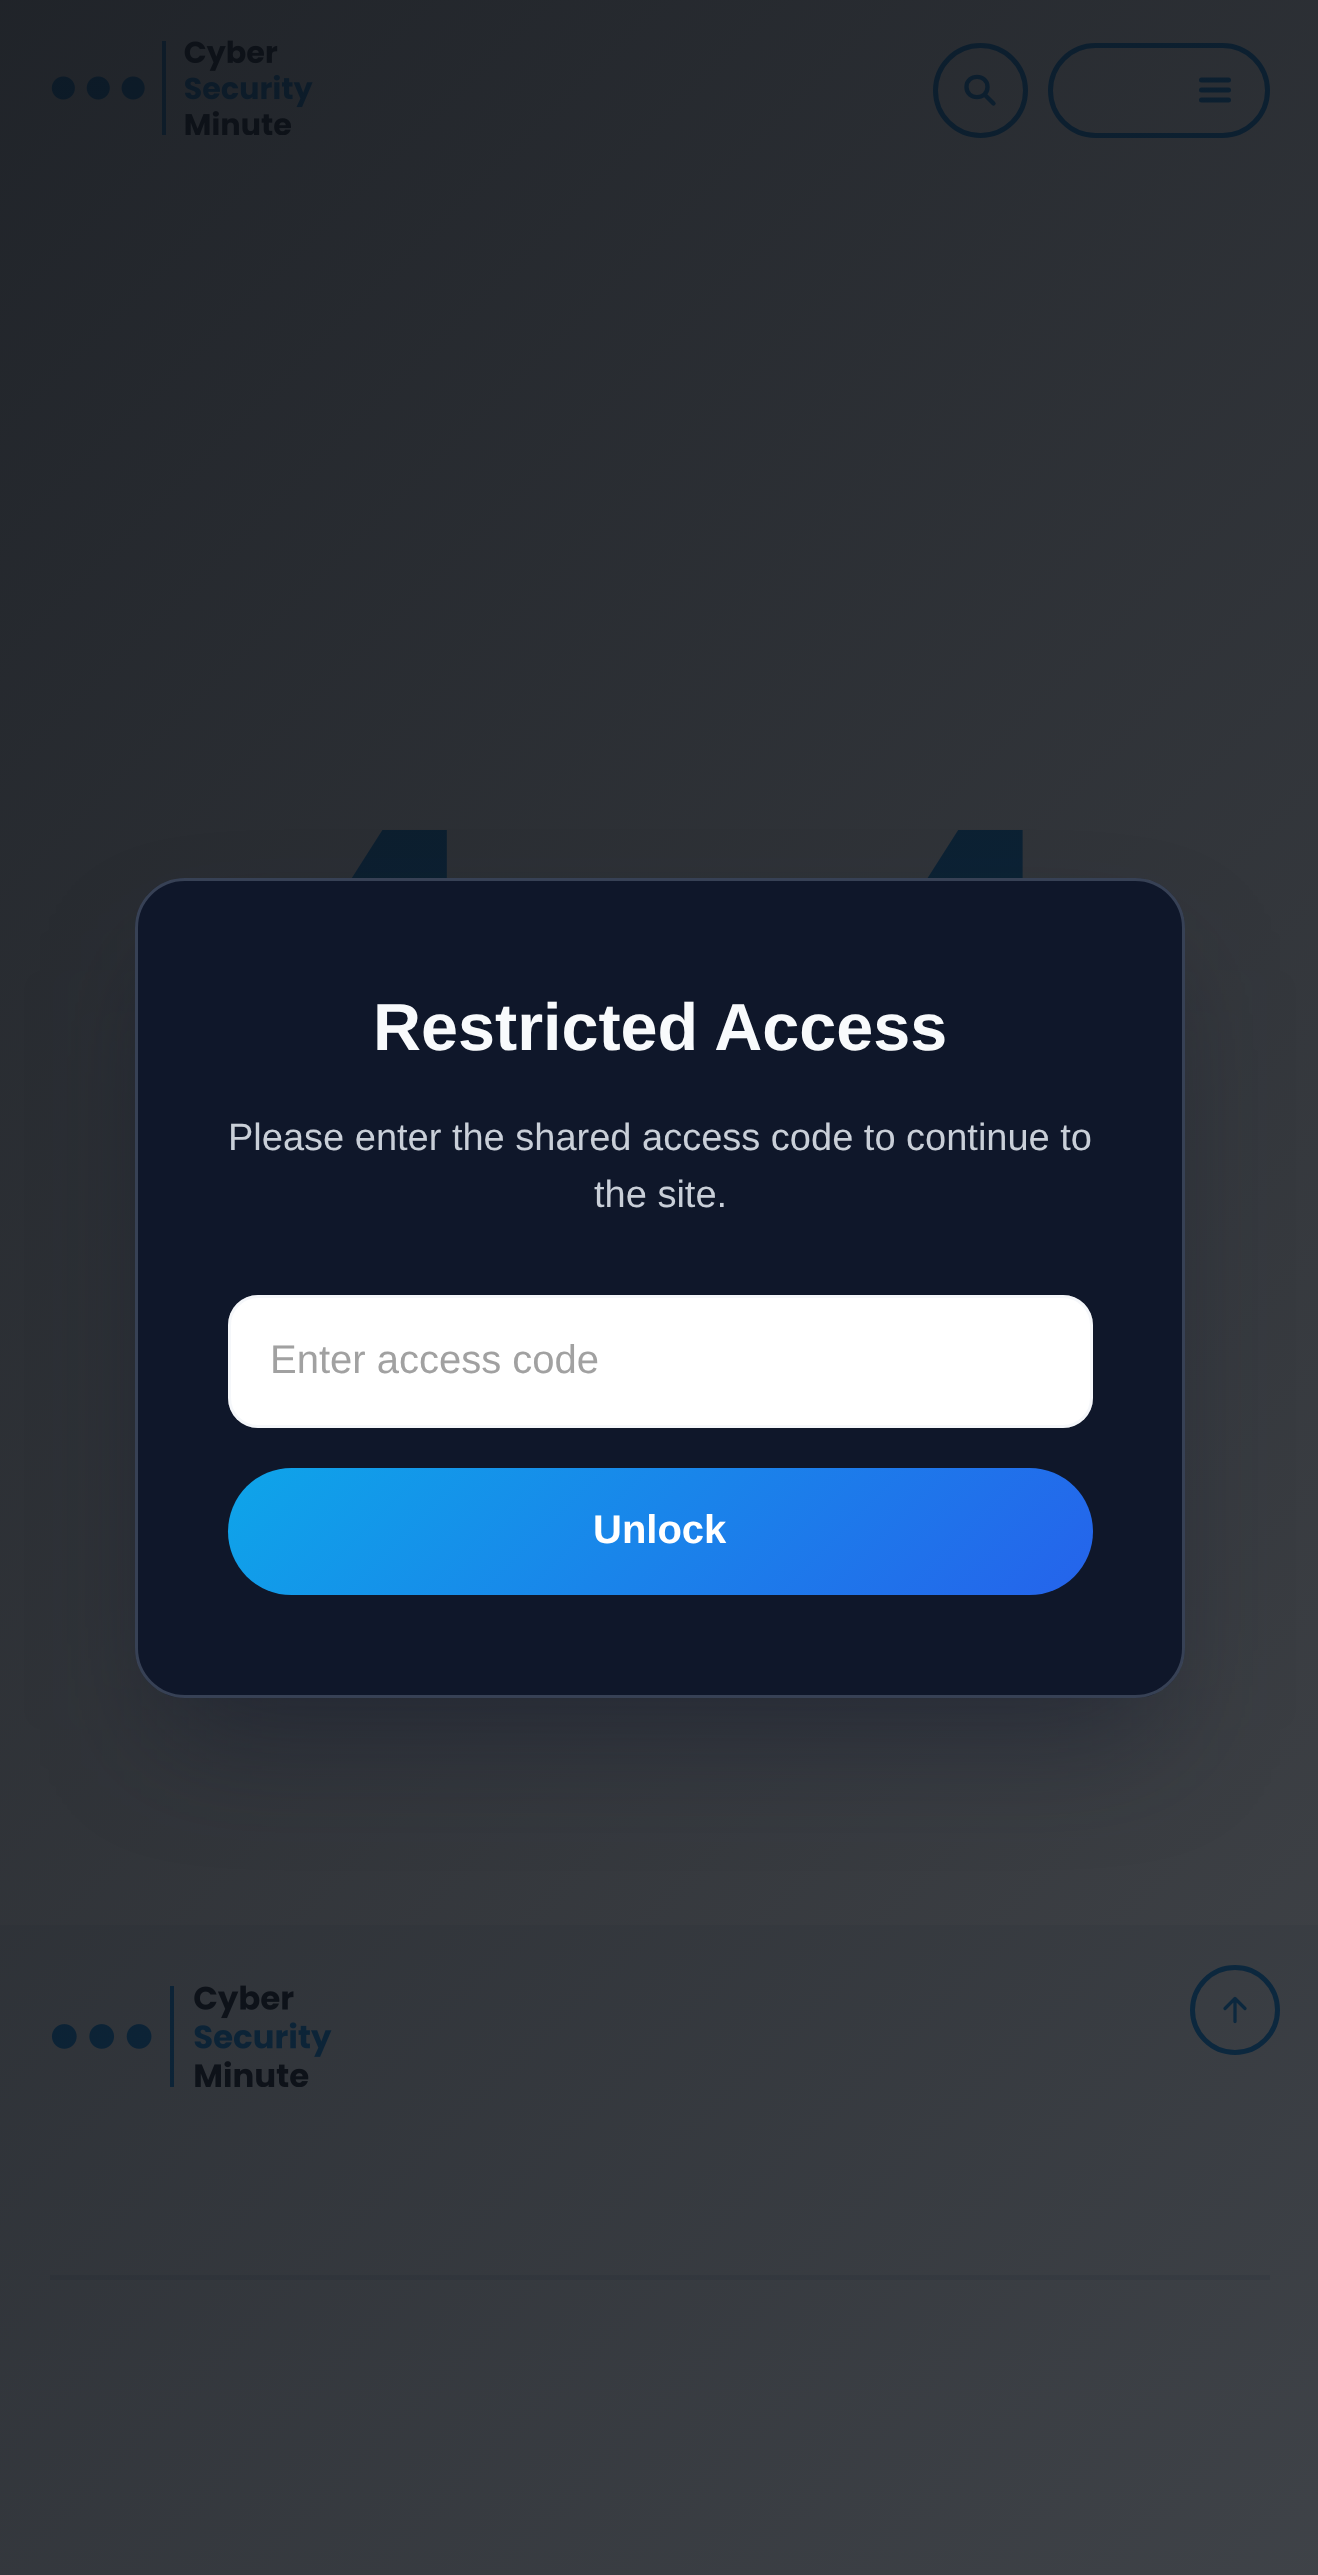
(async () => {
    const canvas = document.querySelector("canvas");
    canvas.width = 1318;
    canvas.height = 2575;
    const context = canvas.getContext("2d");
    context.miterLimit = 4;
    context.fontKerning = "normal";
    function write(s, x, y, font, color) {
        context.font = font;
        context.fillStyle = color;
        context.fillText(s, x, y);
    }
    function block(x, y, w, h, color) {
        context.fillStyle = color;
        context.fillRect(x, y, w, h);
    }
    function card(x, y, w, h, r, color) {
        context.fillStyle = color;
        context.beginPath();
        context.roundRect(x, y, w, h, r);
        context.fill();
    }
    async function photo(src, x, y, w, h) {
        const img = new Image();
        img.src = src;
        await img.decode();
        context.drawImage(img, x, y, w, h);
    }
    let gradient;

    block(0, 0, 1318, 2575, "rgb(255, 255, 255)");
    await photo("media/1.png", 51, 40, 262, 95);
    context.beginPath();
    context.arc(980.5, 90.5, 45, 0, Math.PI * 2);
    context.strokeStyle = "rgb(8, 132, 220)";
    context.lineWidth = 5;
    context.stroke();
    context.beginPath();
    context.moveTo(993.5, 103.5);
    context.lineTo(984.5, 94.5);
    context.moveTo(966.5, 87);
    context.bezierCurveTo(966.5, 100.5, 987.5, 100.5, 987.5, 87);
    context.bezierCurveTo(987.5, 73.5, 966.5, 73.5, 966.5, 87);
    context.closePath();
    context.lineWidth = 4.4;
    context.lineCap = "round";
    context.lineJoin = "round";
    context.stroke();
    context.beginPath();
    context.roundRect(1050.5, 45.5, 217, 90, 45);
    context.lineWidth = 5;
    context.lineJoin = "miter";
    context.stroke();
    context.beginPath();
    context.moveTo(1201.5, 80);
    context.lineTo(1228.5, 80);
    context.moveTo(1201.5, 90);
    context.lineTo(1228.5, 90);
    context.moveTo(1201.5, 100);
    context.lineTo(1228.5, 100);
    context.lineJoin = "round";
    context.stroke();
    await photo("media/2.png", 351, 830, 672, 48);
    block(0, 1925, 1318, 650, "rgb(239, 242, 245)");
    context.beginPath();
    context.arc(1235, 2010, 42.5, 0, Math.PI * 2);
    context.stroke();
    context.beginPath();
    context.moveTo(1235, 1998.5);
    context.lineTo(1235, 2021.5);
    context.moveTo(1235, 1998.5);
    context.lineTo(1245, 2008.5);
    context.moveTo(1235, 1998.5);
    context.lineTo(1225, 2008.5);
    context.lineWidth = 3.3;
    context.stroke();
    await photo("media/3.png", 51, 1985, 281, 102);
    block(50, 2275, 1220, 5, "rgb(215, 222, 231)");
    gradient = context.createLinearGradient(-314, 314, 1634, 2261);
    gradient.addColorStop(0, "rgba(13, 17, 23, 0.92)");
    gradient.addColorStop(1, "rgba(13, 17, 23, 0.78)");
    context.fillStyle = gradient;
    context.fillRect(0, 0, 1318, 2575);
    context.fillStyle = "rgba(15, 23, 42, 0.45)";
    context.filter = "blur(62.5px)";
    context.beginPath();
    context.roundRect(165, 970, 990, 760, 20);
    context.fill();
    context.filter = "none";
    card(135, 878, 1050, 820, 50, "rgb(15, 23, 42)");
    context.beginPath();
    context.roundRect(136.5, 879.5, 1047, 817, 48.5);
    context.strokeStyle = "rgba(148, 163, 184, 0.3)";
    context.lineWidth = 3;
    context.lineJoin = "miter";
    context.stroke();
    write("Restricted Access", 373, 1050, "bold 66.5px Liberation Sans", "rgb(248, 250, 252)");
    write("Please enter the shared access code to continue to", 228, 1150, "38px Liberation Sans", "rgb(201, 207, 216)");
    write("the site.", 594, 1207, "38px Liberation Sans", "rgb(201, 207, 216)");
    card(228, 1295, 865, 133, 30, "rgb(255, 255, 255)");
    context.beginPath();
    context.roundRect(229.5, 1296.5, 862, 130, 28.5);
    context.strokeStyle = "rgba(226, 232, 240, 0.35)";
    context.stroke();
    write("Enter access code", 270, 1373, "40px Liberation Sans", "rgb(161, 161, 161)");
    gradient = context.createLinearGradient(412, 1283, 908, 1779);
    gradient.addColorStop(0, "rgb(14, 165, 233)");
    gradient.addColorStop(1, "rgb(37, 99, 235)");
    context.fillStyle = gradient;
    context.beginPath();
    context.roundRect(228, 1468, 865, 127, 63.5);
    context.fill();
    write("Unlock", 593, 1543, "bold 40px Liberation Sans", "rgb(255, 255, 255)");
})();
